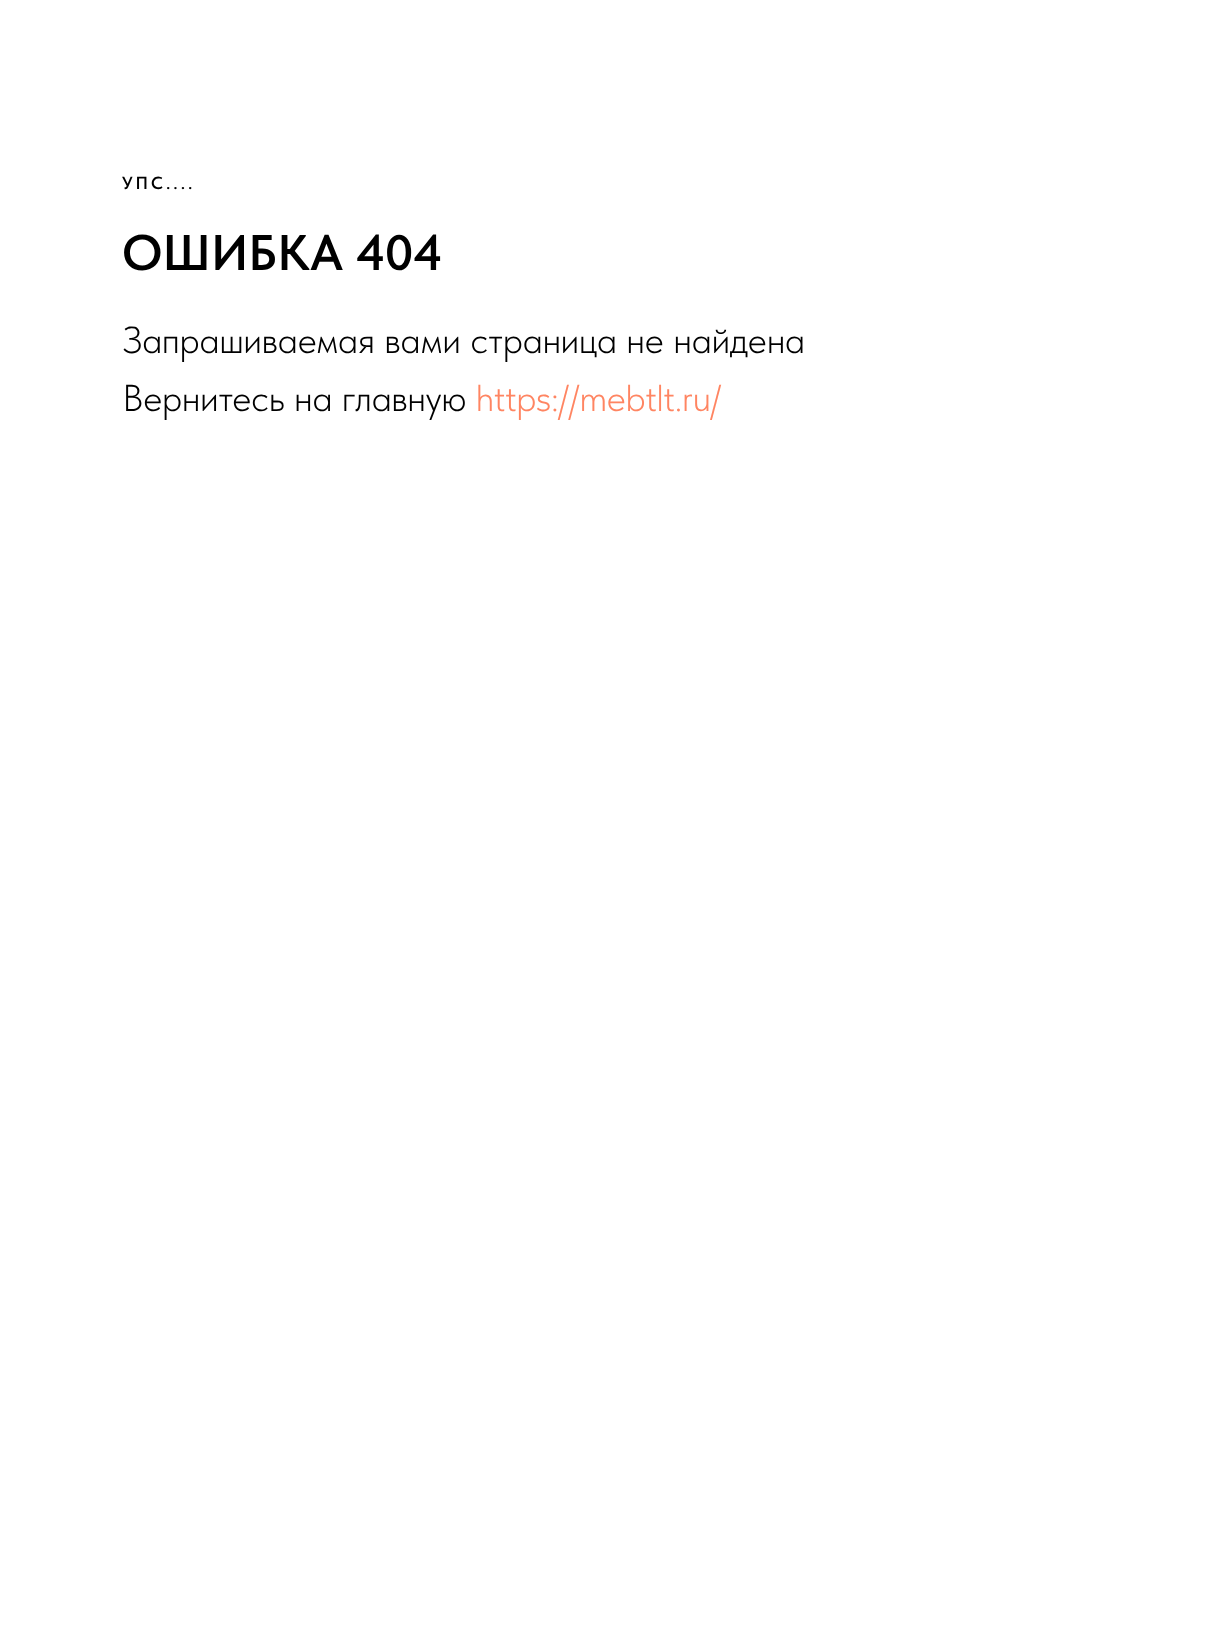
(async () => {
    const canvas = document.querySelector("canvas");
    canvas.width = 1218;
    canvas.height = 1646;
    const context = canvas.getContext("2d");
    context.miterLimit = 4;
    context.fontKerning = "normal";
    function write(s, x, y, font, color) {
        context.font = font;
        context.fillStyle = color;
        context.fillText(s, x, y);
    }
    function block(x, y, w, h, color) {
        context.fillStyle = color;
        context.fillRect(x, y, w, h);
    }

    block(0, 0, 1218, 1646, "rgb(255, 255, 255)");
    context.letterSpacing = "3px";
    write("УПС....", 122, 189, "600 17.5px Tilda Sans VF", "rgb(0, 0, 0)");
    context.letterSpacing = "0px";
    write("ОШИБКА 404", 122, 270, "600 50px Tilda Sans VF", "rgb(0, 0, 0)");
    write("Запрашиваемая вами страница не найдена", 122, 353, "300 37.5px Tilda Sans VF", "rgb(0, 0, 0)");
    write("Вернитесь на главную", 122, 411, "300 37.5px Tilda Sans VF", "rgb(0, 0, 0)");
    write("https://mebtlt.ru/", 476, 411, "300 37.5px Tilda Sans VF", "rgb(255, 133, 98)");
})();
